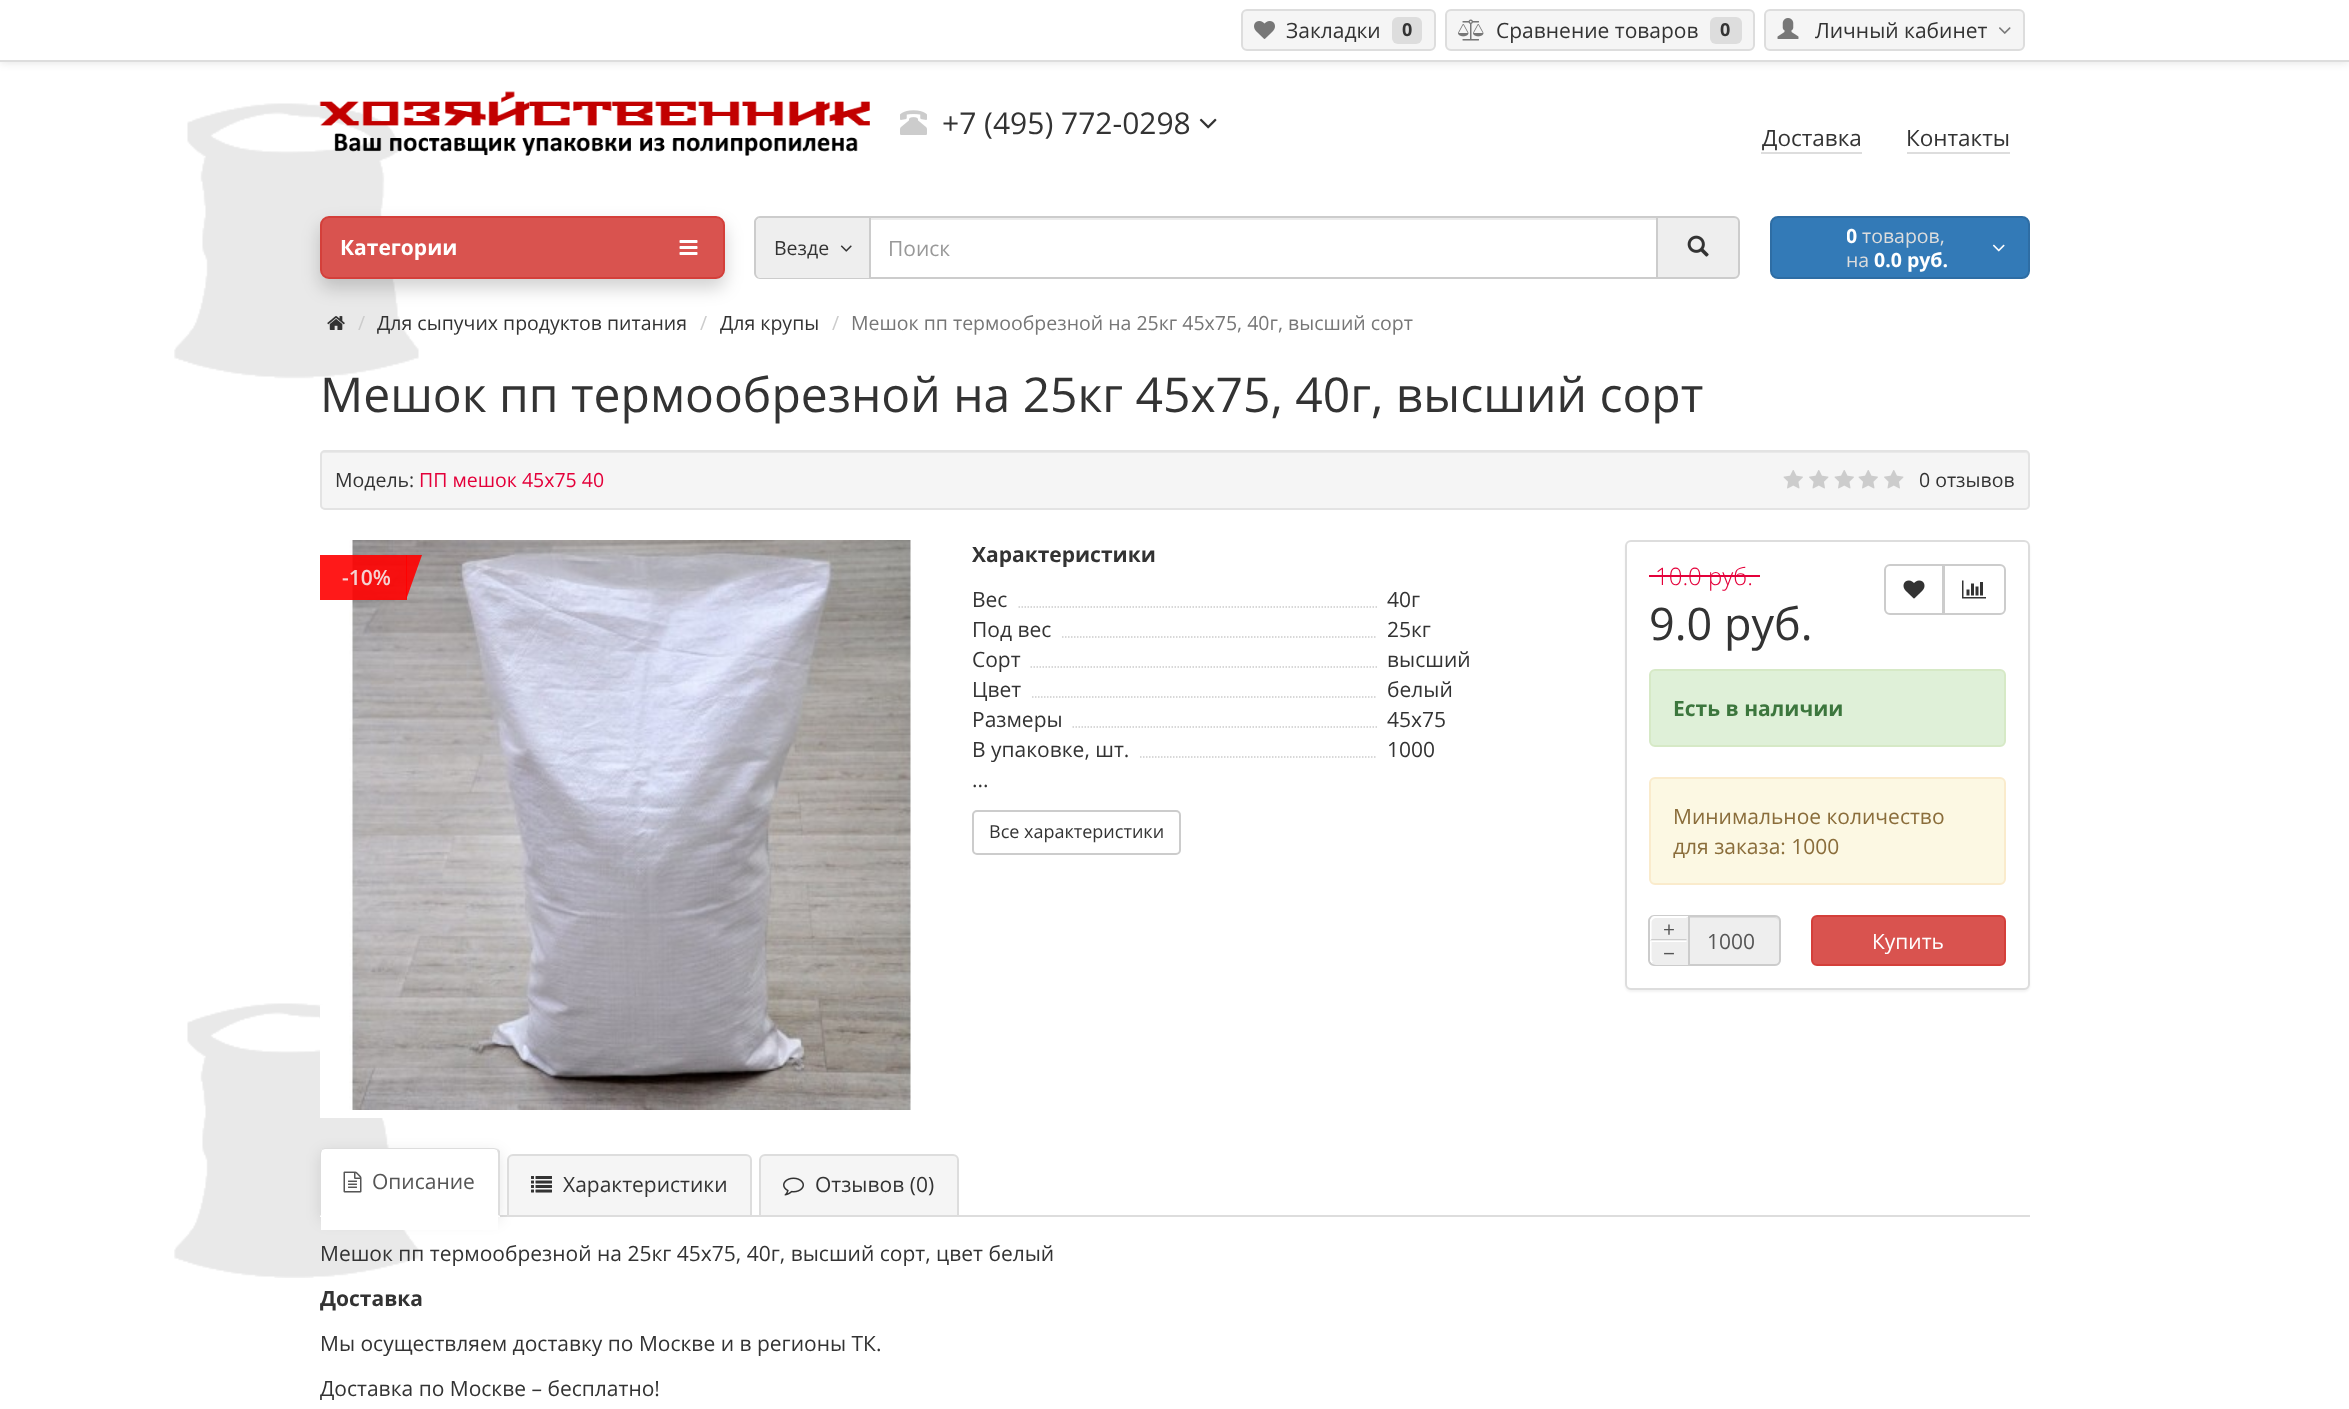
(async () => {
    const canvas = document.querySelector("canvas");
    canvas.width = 2349;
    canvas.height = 1409;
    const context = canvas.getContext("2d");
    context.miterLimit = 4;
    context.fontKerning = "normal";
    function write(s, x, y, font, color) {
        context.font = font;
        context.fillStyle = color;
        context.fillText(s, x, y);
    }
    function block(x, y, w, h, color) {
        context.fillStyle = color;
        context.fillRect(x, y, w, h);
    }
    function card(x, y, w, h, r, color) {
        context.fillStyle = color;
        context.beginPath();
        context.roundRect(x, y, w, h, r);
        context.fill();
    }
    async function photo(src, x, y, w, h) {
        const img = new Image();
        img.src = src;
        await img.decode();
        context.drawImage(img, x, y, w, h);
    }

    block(0, 0, 2349, 1409, "rgb(255, 255, 255)");
    await photo("media/1.png", 174, 103, 245, 1175);
    context.fillStyle = "rgba(0, 0, 0, 0.1)";
    context.filter = "blur(4px)";
    context.beginPath();
    context.rect(0, 2, 2349, 61);
    context.fill();
    context.filter = "none";
    block(0, 0, 2349, 60, "rgb(255, 255, 255)");
    block(0, 60, 2349, 2, "rgb(221, 221, 221)");
    context.fillStyle = "rgb(245, 245, 245)";
    context.beginPath();
    context.roundRect(1242, 10, 193, 40, 5);
    context.fill();
    context.strokeStyle = "rgb(221, 221, 221)";
    context.lineWidth = 2;
    context.stroke();
    await photo("media/2.png", 1254, 21, 21, 18);
    write("Закладки", 1286, 38, "21px Open Sans", "rgb(51, 51, 51)");
    card(1392, 17, 30, 27, 6, "rgb(221, 221, 221)");
    write("0", 1402, 36, "bold 18px Open Sans", "rgb(51, 51, 51)");
    context.fillStyle = "rgb(245, 245, 245)";
    context.beginPath();
    context.roundRect(1446, 10, 308, 40, 5);
    context.fill();
    context.stroke();
    await photo("media/3.png", 1458, 19, 26, 22);
    write("Сравнение товаров", 1496, 38, "21px Open Sans", "rgb(51, 51, 51)");
    card(1710, 17, 32, 27, 6, "rgb(221, 221, 221)");
    write("0", 1720, 36, "bold 18px Open Sans", "rgb(51, 51, 51)");
    context.fillStyle = "rgb(245, 245, 245)";
    context.beginPath();
    context.roundRect(1765, 10, 259, 40, 5);
    context.fill();
    context.stroke();
    await photo("media/4.png", 1777, 18, 22, 21);
    write("Личный кабинет", 1815, 38, "21px Open Sans", "rgb(51, 51, 51)");
    await photo("media/5.png", 1999, 27, 12, 7);
    await photo("media/6.png", 319, 91, 551, 65);
    await photo("media/7.png", 900, 110, 27, 25);
    write("+7 (495) 772-0298", 942, 134, "30px Open Sans", "rgb(51, 51, 51)");
    await photo("media/8.png", 1199, 118, 18, 11);
    write("Доставка", 1762, 146, "22.5px Open Sans", "rgb(51, 51, 51)");
    block(1761, 152, 101, 2, "rgb(221, 221, 221)");
    write("Контакты", 1906, 146, "22.5px Open Sans", "rgb(51, 51, 51)");
    block(1907, 152, 103, 2, "rgb(221, 221, 221)");
    context.fillStyle = "rgba(0, 0, 0, 0.18)";
    context.filter = "blur(9px)";
    context.beginPath();
    context.roundRect(320, 225, 405, 63, 9);
    context.fill();
    context.filter = "none";
    context.fillStyle = "rgb(217, 83, 79)";
    context.beginPath();
    context.roundRect(321, 217, 403, 61, 8);
    context.fill();
    context.strokeStyle = "rgb(212, 63, 58)";
    context.stroke();
    write("Категории", 340, 255, "bold 21px Open Sans", "rgb(255, 255, 255)");
    await photo("media/9.png", 679, 240, 19, 15);
    context.fillStyle = "rgb(238, 238, 238)";
    context.beginPath();
    context.roundRect(756, 218, 114, 60, [5, 0, 0, 5]);
    context.fill();
    context.fillStyle = "rgb(204, 204, 204)";
    context.beginPath();
    context.moveTo(760, 216);
    context.lineTo(870, 216);
    context.lineTo(870, 279);
    context.lineTo(760, 279);
    context.bezierCurveTo(757, 279, 754, 276, 754, 273);
    context.lineTo(754, 222);
    context.bezierCurveTo(754, 219, 757, 216, 760, 216);
    context.closePath();
    context.moveTo(760, 218);
    context.lineTo(870, 218);
    context.lineTo(870, 278);
    context.lineTo(760, 278);
    context.bezierCurveTo(758, 278, 756, 275, 756, 273);
    context.lineTo(756, 222);
    context.bezierCurveTo(756, 220, 758, 218, 760, 218);
    context.closePath();
    context.fill("evenodd");
    write("Везде", 774, 255, "19.5px Open Sans", "rgb(51, 51, 51)");
    await photo("media/10.png", 840, 245, 12, 7);
    block(870, 218, 786, 2, "rgb(236, 236, 236)");
    context.strokeStyle = "rgb(204, 204, 204)";
    context.strokeRect(870, 217, 787, 61);
    write("Поиск", 888, 256, "21px Open Sans", "rgb(153, 153, 153)");
    context.fillStyle = "rgb(238, 238, 238)";
    context.beginPath();
    context.roundRect(1657, 217, 82, 61, [0, 5, 5, 0]);
    context.fill();
    context.stroke();
    await photo("media/11.png", 1687, 235, 22, 22);
    context.fillStyle = "rgb(51, 122, 183)";
    context.beginPath();
    context.roundRect(1771, 217, 258, 61, 7);
    context.fill();
    context.strokeStyle = "rgb(46, 109, 164)";
    context.stroke();
    context.save();
    context.beginPath();
    context.rect(1847, 224, 136, 24);
    context.clip();
    write("0", 1846, 243, "bold 19.5px Open Sans", "rgb(255, 255, 255)");
    context.restore();
    write("товаров,", 1862, 243, "19.5px Open Sans", "rgb(221, 221, 221)");
    write("на", 1846, 267, "19.5px Open Sans", "rgb(221, 221, 221)");
    write("0.0 руб.", 1874, 267, "bold 19.5px Open Sans", "rgb(255, 255, 255)");
    await photo("media/12.png", 1992, 244, 13, 8);
    await photo("media/13.png", 327, 316, 18, 14);
    write("/", 358, 330, "19.5px Open Sans", "rgb(204, 204, 204)");
    write("Для сыпучих продуктов питания", 377, 330, "19.5px Open Sans", "rgb(51, 51, 51)");
    write("/", 700, 330, "19.5px Open Sans", "rgb(204, 204, 204)");
    write("Для крупы", 720, 330, "19.5px Open Sans", "rgb(51, 51, 51)");
    write("/", 832, 330, "19.5px Open Sans", "rgb(204, 204, 204)");
    write("Мешок пп термообрезной на 25кг 45х75, 40г, высший сорт", 851, 330, "19.5px Open Sans", "rgb(119, 119, 119)");
    write("Мешок пп термообрезной на 25кг 45х75, 40г, высший сорт", 320, 412, "48px Open Sans", "rgb(51, 51, 51)");
    card(320, 450, 1710, 60, 5, "rgb(245, 245, 245)");
    context.fillStyle = "rgb(233, 233, 233)";
    context.beginPath();
    context.moveTo(324, 453);
    context.lineTo(2025, 453);
    context.bezierCurveTo(2027, 453, 2028, 454, 2028, 456);
    context.lineTo(2028, 455);
    context.bezierCurveTo(2028, 453, 2027, 452, 2025, 452);
    context.lineTo(324, 452);
    context.bezierCurveTo(322, 452, 321, 453, 321, 455);
    context.lineTo(321, 456);
    context.bezierCurveTo(321, 454, 322, 453, 324, 453);
    context.closePath();
    context.fill();
    context.beginPath();
    context.roundRect(321, 451, 1708, 58, 4);
    context.strokeStyle = "rgb(227, 227, 227)";
    context.stroke();
    write("Модель:", 335, 487, "19.5px Open Sans", "rgb(51, 51, 51)");
    write("ПП мешок 45х75 40", 419, 487, "19.5px Open Sans", "rgb(228, 0, 58)");
    await photo("media/14.png", 1783, 470, 20, 19);
    await photo("media/15.png", 1809, 470, 20, 19);
    await photo("media/14.png", 1834, 470, 20, 19);
    await photo("media/14.png", 1858, 470, 20, 19);
    await photo("media/15.png", 1884, 470, 20, 19);
    write("0 отзывов", 1919, 487, "19.5px Open Sans", "rgb(51, 51, 51)");
    block(320, 1005, 83, 113, "rgb(255, 255, 255)");
    await photo("media/16.png", 349, 540, 562, 570);
    block(320, 555, 87, 45, "rgba(255, 0, 0, 0.9)");
    write("-10%", 342, 585, "600 21px Open Sans", "rgb(245, 210, 210)");
    context.fillStyle = "rgba(255, 0, 0, 0.9)";
    context.beginPath();
    context.moveTo(406, 600);
    context.lineTo(406, 555);
    context.lineTo(422, 555);
    context.closePath();
    context.fill();
    write("Характеристики", 972, 562, "bold 21px Open Sans", "rgb(51, 51, 51)");
    write("Вес", 972, 607, "21px Open Sans", "rgb(51, 51, 51)");
    context.save();
    context.beginPath();
    context.rect(972, 585, 405, 30);
    context.clip();
    context.beginPath();
    context.moveTo(1018.5, 607);
    context.lineTo(1422, 607);
    context.strokeStyle = "rgb(204, 204, 204)";
    context.lineWidth = 1.5;
    context.setLineDash([1.5, 1.5]);
    context.stroke();
    context.restore();
    write("40г", 1387, 607, "21px Open Sans", "rgb(51, 51, 51)");
    write("Под вес", 972, 637, "21px Open Sans", "rgb(51, 51, 51)");
    context.save();
    context.beginPath();
    context.rect(972, 615, 405, 30);
    context.clip();
    context.beginPath();
    context.moveTo(1062, 637);
    context.lineTo(1467, 637);
    context.strokeStyle = "rgb(204, 204, 204)";
    context.lineWidth = 1.5;
    context.setLineDash([1.5, 1.5]);
    context.stroke();
    context.restore();
    write("25кг", 1387, 637, "21px Open Sans", "rgb(51, 51, 51)");
    write("Сорт", 972, 667, "21px Open Sans", "rgb(51, 51, 51)");
    context.save();
    context.beginPath();
    context.rect(972, 645, 405, 30);
    context.clip();
    context.beginPath();
    context.moveTo(1030.5, 667);
    context.lineTo(1435.5, 667);
    context.strokeStyle = "rgb(204, 204, 204)";
    context.lineWidth = 1.5;
    context.setLineDash([1.5, 1.5]);
    context.stroke();
    context.restore();
    write("высший", 1387, 667, "21px Open Sans", "rgb(51, 51, 51)");
    write("Цвет", 972, 697, "21px Open Sans", "rgb(51, 51, 51)");
    context.save();
    context.beginPath();
    context.rect(972, 675, 405, 30);
    context.clip();
    context.beginPath();
    context.moveTo(1032, 697);
    context.lineTo(1437, 697);
    context.strokeStyle = "rgb(204, 204, 204)";
    context.lineWidth = 1.5;
    context.setLineDash([1.5, 1.5]);
    context.stroke();
    context.restore();
    write("белый", 1387, 697, "21px Open Sans", "rgb(51, 51, 51)");
    write("Размеры", 972, 727, "21px Open Sans", "rgb(51, 51, 51)");
    context.save();
    context.beginPath();
    context.rect(972, 705, 405, 30);
    context.clip();
    context.beginPath();
    context.moveTo(1072.5, 727);
    context.lineTo(1477.5, 727);
    context.strokeStyle = "rgb(204, 204, 204)";
    context.lineWidth = 1.5;
    context.setLineDash([1.5, 1.5]);
    context.stroke();
    context.restore();
    write("45х75", 1387, 727, "21px Open Sans", "rgb(51, 51, 51)");
    write("В упаковке, шт.", 972, 757, "21px Open Sans", "rgb(51, 51, 51)");
    context.save();
    context.beginPath();
    context.rect(972, 735, 405, 30);
    context.clip();
    context.beginPath();
    context.moveTo(1140, 757);
    context.lineTo(1545, 757);
    context.strokeStyle = "rgb(204, 204, 204)";
    context.lineWidth = 1.5;
    context.setLineDash([1.5, 1.5]);
    context.stroke();
    context.restore();
    write("1000", 1387, 757, "21px Open Sans", "rgb(51, 51, 51)");
    write("...", 972, 787, "21px Open Sans", "rgb(51, 51, 51)");
    context.beginPath();
    context.roundRect(973, 811, 207, 43, 4);
    context.strokeStyle = "rgb(204, 204, 204)";
    context.stroke();
    write("Все характеристики", 989, 838, "18px Open Sans", "rgb(51, 51, 51)");
    context.fillStyle = "rgba(0, 0, 0, 0.05)";
    context.filter = "blur(1px)";
    context.beginPath();
    context.roundRect(1625, 542, 405, 450, 6);
    context.fill();
    context.filter = "none";
    context.fillStyle = "rgb(255, 255, 255)";
    context.beginPath();
    context.roundRect(1626, 541, 403, 448, 5);
    context.fill();
    context.strokeStyle = "rgb(221, 221, 221)";
    context.stroke();
    write("10.0 руб.", 1655, 585, "300 24px Open Sans", "rgb(228, 0, 58)");
    block(1649, 575, 111, 2, "rgb(228, 0, 58)");
    write("9.0 руб.", 1649, 640, "45px Open Sans", "rgb(51, 51, 51)");
    context.beginPath();
    context.roundRect(1885, 565, 58, 49, [5, 0, 0, 5]);
    context.strokeStyle = "rgb(204, 204, 204)";
    context.stroke();
    await photo("media/17.png", 1903, 580, 22, 19);
    context.fillStyle = "rgb(255, 255, 255)";
    context.beginPath();
    context.roundRect(1944, 565, 61, 49, [0, 5, 5, 0]);
    context.fill();
    context.stroke();
    await photo("media/18.png", 1962, 580, 24, 19);
    context.fillStyle = "rgb(223, 240, 216)";
    context.beginPath();
    context.roundRect(1650, 670, 355, 76, 5);
    context.fill();
    context.strokeStyle = "rgb(214, 233, 198)";
    context.stroke();
    write("Есть в наличии", 1673, 716, "bold 21px Open Sans", "rgb(60, 118, 61)");
    context.fillStyle = "rgb(252, 248, 227)";
    context.beginPath();
    context.roundRect(1650, 778, 355, 106, 5);
    context.fill();
    context.strokeStyle = "rgb(250, 235, 204)";
    context.stroke();
    write("Минимальное количество", 1673, 824, "21px Open Sans", "rgb(138, 109, 59)");
    write("для заказа: 1000", 1673, 854, "21px Open Sans", "rgb(138, 109, 59)");
    context.fillStyle = "rgb(204, 204, 204)";
    context.beginPath();
    context.moveTo(1654, 915);
    context.lineTo(1688, 915);
    context.lineTo(1688, 966);
    context.lineTo(1654, 966);
    context.bezierCurveTo(1651, 966, 1648, 963, 1648, 960);
    context.lineTo(1648, 921);
    context.bezierCurveTo(1648, 918, 1651, 915, 1654, 915);
    context.closePath();
    context.moveTo(1654, 916);
    context.lineTo(1688, 916);
    context.lineTo(1688, 964);
    context.lineTo(1654, 964);
    context.bezierCurveTo(1652, 964, 1650, 962, 1650, 960);
    context.lineTo(1650, 921);
    context.bezierCurveTo(1650, 919, 1652, 916, 1654, 916);
    context.closePath();
    context.fill("evenodd");
    context.fillStyle = "rgb(238, 238, 238)";
    context.beginPath();
    context.roundRect(1650, 917, 38, 24, [6, 0, 0, 0]);
    context.fill();
    context.fillStyle = "rgb(255, 255, 255)";
    context.beginPath();
    context.moveTo(1656, 916.5);
    context.bezierCurveTo(1654, 916.5, 1653, 917, 1651.5, 918);
    context.lineTo(1653, 919.5);
    context.bezierCurveTo(1653.5, 918.5, 1655, 918, 1656, 918);
    context.lineTo(1686, 918);
    context.lineTo(1687.5, 916.5);
    context.closePath();
    context.fill();
    context.fillStyle = "rgb(204, 204, 204)";
    context.beginPath();
    context.moveTo(1687.5, 940.5);
    context.lineTo(1686, 939);
    context.lineTo(1651.5, 939);
    context.lineTo(1650, 940.5);
    context.closePath();
    context.fill();
    context.fillStyle = "rgb(255, 255, 255)";
    context.beginPath();
    context.moveTo(1650, 940.5);
    context.lineTo(1651.5, 939);
    context.lineTo(1651.5, 922.5);
    context.bezierCurveTo(1651.5, 921, 1652, 920, 1653, 919.5);
    context.lineTo(1651.5, 918);
    context.bezierCurveTo(1650.5, 919, 1650, 921, 1650, 922.5);
    context.closePath();
    context.fill();
    write("+", 1663, 937, "21px Open Sans", "rgb(85, 85, 85)");
    context.fillStyle = "rgb(238, 238, 238)";
    context.beginPath();
    context.roundRect(1650, 941, 38, 24, [0, 0, 0, 6]);
    context.fill();
    context.fillStyle = "rgb(255, 255, 255)";
    context.beginPath();
    context.moveTo(1650, 940.5);
    context.lineTo(1651.5, 942);
    context.lineTo(1686, 942);
    context.lineTo(1687.5, 940.5);
    context.closePath();
    context.fill();
    context.beginPath();
    context.moveTo(1651.5, 942);
    context.lineTo(1650, 940.5);
    context.lineTo(1650, 958.5);
    context.bezierCurveTo(1650, 960, 1650.5, 962, 1651.5, 963);
    context.lineTo(1653, 961.5);
    context.bezierCurveTo(1652, 961, 1651.5, 960, 1651.5, 958.5);
    context.closePath();
    context.fill();
    write("−", 1663, 961, "21px Open Sans", "rgb(85, 85, 85)");
    context.fillStyle = "rgb(238, 238, 238)";
    context.beginPath();
    context.roundRect(1688, 915, 93, 51, [0, 6, 6, 0]);
    context.fill();
    context.fillStyle = "rgb(220, 220, 220)";
    context.beginPath();
    context.moveTo(1689, 918);
    context.lineTo(1774, 918);
    context.bezierCurveTo(1777, 918, 1779, 920, 1779, 922);
    context.bezierCurveTo(1779, 919, 1777, 917, 1774, 917);
    context.lineTo(1689, 917);
    context.closePath();
    context.fill();
    context.beginPath();
    context.roundRect(1689, 916, 91, 49, [0, 5, 5, 0]);
    context.strokeStyle = "rgb(204, 204, 204)";
    context.stroke();
    write("1000", 1707, 949, "21px Open Sans", "rgb(85, 85, 85)");
    context.fillStyle = "rgb(217, 83, 79)";
    context.beginPath();
    context.roundRect(1812, 916, 193, 49, 5);
    context.fill();
    context.strokeStyle = "rgb(212, 63, 58)";
    context.stroke();
    write("Купить", 1872, 949, "21px Open Sans", "rgb(255, 255, 255)");
    block(500, 1215, 1530, 2, "rgb(221, 221, 221)");
    context.fillStyle = "rgba(0, 0, 0, 0.1)";
    context.filter = "blur(7.5px)";
    context.beginPath();
    context.roundRect(320, 1152, 180, 69, 6);
    context.fill();
    context.filter = "none";
    context.fillStyle = "rgb(255, 255, 255)";
    context.beginPath();
    context.roundRect(320, 1148, 180, 69, [6, 6, 0, 0]);
    context.fill();
    context.fillStyle = "rgb(221, 221, 221)";
    context.beginPath();
    context.moveTo(326, 1148);
    context.bezierCurveTo(324, 1148, 322, 1148, 322, 1150);
    context.lineTo(325, 1149);
    context.lineTo(494, 1149);
    context.lineTo(497, 1150);
    context.lineTo(498, 1149);
    context.lineTo(494, 1148);
    context.closePath();
    context.fill();
    context.beginPath();
    context.moveTo(498, 1149);
    context.lineTo(500, 1151);
    context.lineTo(500, 1216);
    context.lineTo(498, 1215);
    context.lineTo(498, 1154);
    context.bezierCurveTo(498, 1152, 497, 1151, 497, 1150);
    context.closePath();
    context.fill();
    context.beginPath();
    context.moveTo(322, 1150);
    context.bezierCurveTo(320, 1150, 320, 1152, 320, 1154);
    context.lineTo(320, 1216);
    context.lineTo(321, 1215);
    context.lineTo(321, 1154);
    context.bezierCurveTo(321, 1152, 322, 1151, 322, 1150);
    context.closePath();
    context.fill();
    await photo("media/19.png", 343, 1171, 19, 22);
    write("Описание", 372, 1189, "21px Open Sans", "rgb(85, 85, 85)");
    block(321, 1217, 177, 13, "rgb(255, 255, 255)");
    context.fillStyle = "rgb(245, 245, 245)";
    context.beginPath();
    context.roundRect(508, 1155, 243, 61, [5, 5, 0, 0]);
    context.fill();
    context.strokeStyle = "rgb(221, 221, 221)";
    context.stroke();
    await photo("media/20.png", 531, 1176, 21, 17);
    write("Характеристики", 563, 1192, "21px Open Sans", "rgb(51, 51, 51)");
    context.fillStyle = "rgb(245, 245, 245)";
    context.beginPath();
    context.roundRect(760, 1155, 198, 61, [5, 5, 0, 0]);
    context.fill();
    context.stroke();
    await photo("media/21.png", 783, 1177, 21, 19);
    write("Отзывов (0)", 815, 1192, "21px Open Sans", "rgb(51, 51, 51)");
    write("Мешок пп термообрезной на 25кг 45х75, 40г, высший сорт, цвет белый", 320, 1261, "21px Open Sans", "rgb(51, 51, 51)");
    write("Доставка", 320, 1306, "bold 21px Open Sans", "rgb(51, 51, 51)");
    write("Мы осуществляем доставку по Москве и в регионы ТК.", 320, 1351, "21px Open Sans", "rgb(51, 51, 51)");
    write("Доставка по Москве – бесплатно!", 320, 1396, "21px Open Sans", "rgb(51, 51, 51)");
})();
